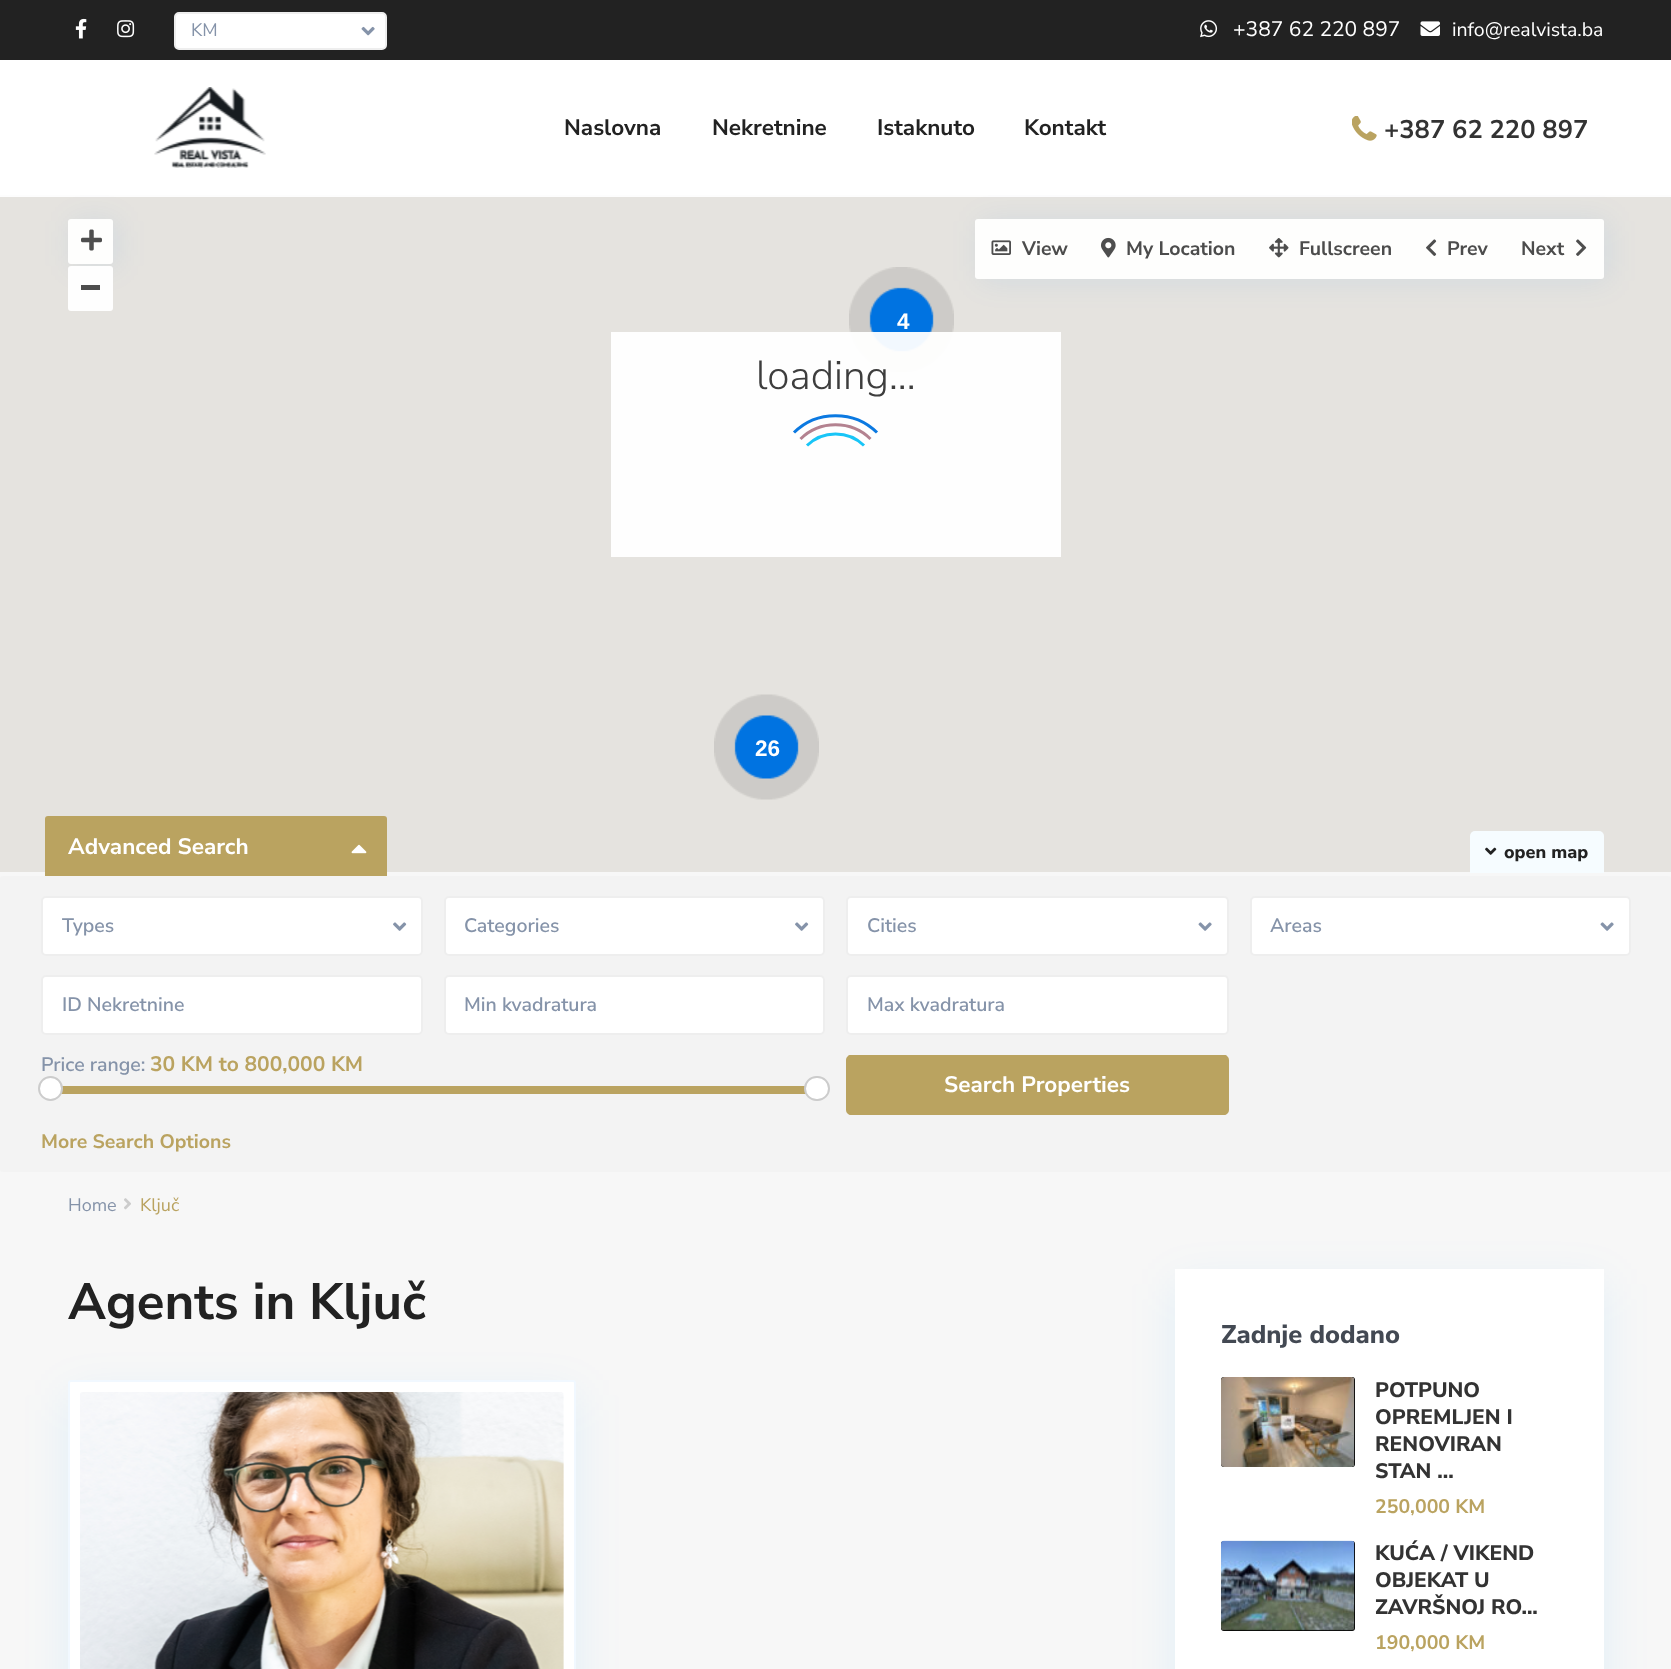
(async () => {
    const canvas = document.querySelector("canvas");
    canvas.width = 1671;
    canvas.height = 1669;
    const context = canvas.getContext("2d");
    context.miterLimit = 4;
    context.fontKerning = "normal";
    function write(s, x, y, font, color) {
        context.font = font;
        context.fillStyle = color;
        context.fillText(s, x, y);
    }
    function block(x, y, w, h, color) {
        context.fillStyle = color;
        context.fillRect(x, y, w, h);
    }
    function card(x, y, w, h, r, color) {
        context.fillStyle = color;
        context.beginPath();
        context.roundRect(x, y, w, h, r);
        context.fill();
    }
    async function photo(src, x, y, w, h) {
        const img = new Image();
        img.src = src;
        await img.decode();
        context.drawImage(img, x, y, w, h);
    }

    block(0, 0, 1671, 1669, "rgb(247, 247, 247)");
    block(0, 195, 1671, 2, "rgb(253, 253, 253)");
    block(0, 197, 1671, 675, "rgb(229, 227, 223)");
    context.fillStyle = "rgba(0, 110, 225, 0.08)";
    context.filter = "blur(15px)";
    context.beginPath();
    context.roundRect(72, 221, 45, 45, 3);
    context.fill();
    context.filter = "none";
    await photo("media/8.png", 849, 267, 105, 105);
    context.filter = "blur(15px)";
    context.beginPath();
    context.roundRect(980, 221, 628, 60, 3);
    context.fill();
    context.filter = "none";
    block(0, 60, 1671, 135, "rgb(255, 255, 255)");
    block(0, 0, 1671, 60, "rgb(34, 34, 34)");
    await photo("media/1.png", 75, 18, 12, 21);
    await photo("media/2.png", 117, 20, 18, 18);
    context.fillStyle = "rgb(255, 255, 255)";
    context.beginPath();
    context.roundRect(175, 13, 211, 36, 4);
    context.fill();
    context.strokeStyle = "rgb(238, 238, 238)";
    context.lineWidth = 2;
    context.stroke();
    write("KM", 191, 36, "18px Nunito Sans", "rgb(133, 147, 169)");
    await photo("media/3.png", 361, 26, 14, 10);
    await photo("media/4.png", 1200, 20, 18, 18);
    write("+387 62 220 897", 1233, 36, "21px Nunito Sans", "rgb(255, 255, 255)");
    await photo("media/5.png", 1420, 21, 20, 15);
    write("info@realvista.ba", 1452, 36, "19.5px Nunito Sans", "rgb(255, 255, 255)");
    await photo("media/6.png", 154, 87, 112, 81);
    write("Naslovna", 564, 135, "bold 22.5px Nunito Sans", "rgb(34, 34, 34)");
    write("Nekretnine", 712, 135, "bold 22.5px Nunito Sans", "rgb(34, 34, 34)");
    write("Istaknuto", 877, 135, "bold 22.5px Nunito Sans", "rgb(34, 34, 34)");
    write("Kontakt", 1024, 135, "bold 22.5px Nunito Sans", "rgb(34, 34, 34)");
    await photo("media/7.png", 1352, 116, 25, 25);
    write("+387 62 220 897", 1384, 138, "bold 25.5px Nunito Sans", "rgb(51, 51, 51)");
    write("4", 897, 329, "bold 22.5px Liberation Sans", "rgb(255, 255, 255)");
    await photo("media/9.png", 714, 694, 105, 106);
    write("26", 755, 756, "bold 22.5px Liberation Sans", "rgb(255, 255, 255)");
    card(68, 219, 45, 45, 3, "rgb(254, 254, 253)");
    await photo("media/10.png", 81, 229, 21, 22);
    card(975, 219, 629, 60, 3, "rgb(254, 254, 253)");
    await photo("media/11.png", 991, 240, 20, 15);
    write("View", 1022, 255, "bold 19.5px Nunito Sans", "rgb(76, 76, 76)");
    await photo("media/12.png", 1101, 237, 15, 21);
    write("My Location", 1126, 255, "bold 19.5px Nunito Sans", "rgb(76, 76, 76)");
    await photo("media/13.png", 1269, 238, 20, 20);
    write("Fullscreen", 1299, 255, "bold 19.5px Nunito Sans", "rgb(76, 76, 76)");
    await photo("media/14.png", 1426, 239, 11, 17);
    write("Prev", 1447, 255, "bold 19.5px Nunito Sans", "rgb(76, 76, 76)");
    write("Next", 1521, 255, "bold 19.5px Nunito Sans", "rgb(76, 76, 76)");
    await photo("media/15.png", 1576, 239, 11, 17);
    card(68, 266, 45, 45, 3, "rgba(255, 255, 255, 0.95)");
    block(81, 285, 19, 5, "rgb(77, 77, 77)");
    context.fillStyle = "rgb(246, 252, 255)";
    context.beginPath();
    context.roundRect(1470, 831, 134, 42, [5, 5, 0, 0]);
    context.fill();
    await photo("media/16.png", 1485, 847, 12, 8);
    write("open map", 1504, 858, "800 18px Nunito Sans", "rgb(34, 34, 34)");
    block(611, 332, 450, 225, "rgba(255, 255, 255, 0.95)");
    write("loading...", 756, 389, "300 40.5px Nunito Sans", "rgb(61, 61, 61)");
    context.beginPath();
    context.moveTo(794, 432.5);
    context.bezierCurveTo(816.5, 410, 854.5, 410, 877, 432.5);
    context.strokeStyle = "rgb(11, 121, 225)";
    context.lineWidth = 3;
    context.stroke();
    context.beginPath();
    context.moveTo(800.5, 439);
    context.bezierCurveTo(819.5, 420, 851.5, 420, 870.5, 439);
    context.strokeStyle = "rgb(179, 130, 144)";
    context.stroke();
    context.beginPath();
    context.moveTo(807, 445.5);
    context.bezierCurveTo(822.5, 430, 848.5, 430, 864, 445.5);
    context.strokeStyle = "rgb(24, 197, 247)";
    context.stroke();
    context.fillStyle = "rgb(186, 163, 96)";
    context.beginPath();
    context.roundRect(45, 816, 342, 60, [3, 3, 0, 0]);
    context.fill();
    write("Advanced Search", 68, 854, "bold 22.5px Nunito Sans", "rgb(255, 255, 255)");
    await photo("media/17.png", 351, 844, 16, 10);
    card(0, 876, 1671, 296, 3, "rgb(243, 243, 243)");
    context.fillStyle = "rgb(255, 255, 255)";
    context.beginPath();
    context.roundRect(42, 897, 380, 58, 4);
    context.fill();
    context.strokeStyle = "rgb(238, 238, 238)";
    context.lineWidth = 2;
    context.stroke();
    write("Types", 62, 932, "600 19.5px Nunito Sans", "rgb(133, 147, 169)");
    await photo("media/18.png", 393, 922, 14, 9);
    context.fillStyle = "rgb(255, 255, 255)";
    context.beginPath();
    context.roundRect(445, 897, 379, 58, 4);
    context.fill();
    context.stroke();
    write("Categories", 464, 932, "600 19.5px Nunito Sans", "rgb(133, 147, 169)");
    await photo("media/18.png", 795, 922, 14, 9);
    context.fillStyle = "rgb(255, 255, 255)";
    context.beginPath();
    context.roundRect(847, 897, 381, 58, 4);
    context.fill();
    context.stroke();
    write("Cities", 867, 932, "600 19.5px Nunito Sans", "rgb(133, 147, 169)");
    await photo("media/19.png", 1198, 922, 14, 9);
    context.fillStyle = "rgb(255, 255, 255)";
    context.beginPath();
    context.roundRect(1251, 897, 379, 58, 4);
    context.fill();
    context.stroke();
    write("Areas", 1270, 932, "600 19.5px Nunito Sans", "rgb(133, 147, 169)");
    await photo("media/19.png", 1600, 922, 14, 9);
    context.fillStyle = "rgb(255, 255, 255)";
    context.beginPath();
    context.roundRect(42, 976, 380, 58, 4);
    context.fill();
    context.stroke();
    write("ID Nekretnine", 62, 1011, "600 19.5px Nunito Sans", "rgb(133, 147, 169)");
    context.fillStyle = "rgb(255, 255, 255)";
    context.beginPath();
    context.roundRect(445, 976, 379, 58, 4);
    context.fill();
    context.stroke();
    write("Min kvadratura", 464, 1011, "600 19.5px Nunito Sans", "rgb(133, 147, 169)");
    context.fillStyle = "rgb(255, 255, 255)";
    context.beginPath();
    context.roundRect(847, 976, 381, 58, 4);
    context.fill();
    context.stroke();
    write("Max kvadratura", 867, 1011, "600 19.5px Nunito Sans", "rgb(133, 147, 169)");
    write("Price range:", 41, 1071, "600 19.5px Nunito Sans", "rgb(133, 147, 169)");
    write("30 KM to 800,000 KM", 150, 1071, "bold 21px Nunito Sans", "rgb(186, 163, 96)");
    block(61, 1086, 745, 8, "rgb(186, 163, 96)");
    context.fillStyle = "rgb(255, 255, 255)";
    context.beginPath();
    context.arc(50.5, 1088.5, 11.5, 0, Math.PI * 2);
    context.fill();
    context.strokeStyle = "rgb(204, 204, 204)";
    context.stroke();
    context.beginPath();
    context.roundRect(805, 1077, 24, 23, 11.5);
    context.fill();
    context.stroke();
    context.save();
    context.beginPath();
    context.roundRect(846, 1055, 383, 60, 5);
    context.clip();
    block(848, 1055, 379, 60, "rgb(186, 163, 96)");
    context.restore();
    context.beginPath();
    context.roundRect(847, 1056, 381, 58, 4);
    context.strokeStyle = "rgb(186, 163, 96)";
    context.stroke();
    write("Search Properties", 944, 1092, "bold 22.5px Nunito Sans", "rgb(255, 255, 255)");
    write("More Search Options", 41, 1148, "bold 19.5px Nunito Sans", "rgb(186, 163, 96)");
    write("Home", 68, 1211, "18px Nunito Sans", "rgb(133, 147, 169)");
    await photo("media/20.png", 124, 1198, 7, 12);
    write("Ključ", 140, 1211, "18px Nunito Sans", "rgb(186, 163, 96)");
    write("Agents in Ključ", 68, 1319, "bold 51px Nunito Sans", "rgb(34, 34, 34)");
    context.fillStyle = "rgba(7, 152, 255, 0.09)";
    context.filter = "blur(23px)";
    context.beginPath();
    context.roundRect(68, 1395, 508, 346, 3);
    context.fill();
    context.filter = "none";
    context.fillStyle = "rgb(255, 255, 255)";
    context.beginPath();
    context.roundRect(69, 1381, 506, 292, 2);
    context.fill();
    context.strokeStyle = "rgb(241, 248, 255)";
    context.stroke();
    await photo("media/21.png", 80, 1392, 484, 277);
    context.fillStyle = "rgba(7, 152, 255, 0.09)";
    context.filter = "blur(23px)";
    context.beginPath();
    context.roundRect(1175, 1284, 429, 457, 3);
    context.fill();
    context.filter = "none";
    block(1175, 1269, 429, 400, "rgb(255, 255, 255)");
    write("Zadnje dodano", 1221, 1343, "800 25.5px Nunito Sans", "rgb(67, 73, 83)");
    card(1221, 1377, 134, 90, 3, "rgb(0, 0, 0)");
    await photo("media/22.png", 1221, 1377, 134, 90);
    write("POTPUNO", 1375, 1397, "800 21px Nunito Sans", "rgb(51, 51, 51)");
    write("OPREMLJEN I", 1375, 1424, "800 21px Nunito Sans", "rgb(51, 51, 51)");
    write("RENOVIRAN", 1375, 1451, "800 21px Nunito Sans", "rgb(51, 51, 51)");
    write("STAN ...", 1375, 1478, "800 21px Nunito Sans", "rgb(51, 51, 51)");
    write("250,000 KM", 1375, 1513, "bold 19.5px Nunito Sans", "rgb(186, 163, 96)");
    card(1221, 1541, 134, 90, 3, "rgb(0, 0, 0)");
    await photo("media/23.png", 1221, 1540, 134, 91);
    write("KUĆA / VIKEND", 1375, 1560, "800 21px Nunito Sans", "rgb(51, 51, 51)");
    write("OBJEKAT U", 1375, 1587, "800 21px Nunito Sans", "rgb(51, 51, 51)");
    write("ZAVRŠNOJ RO...", 1375, 1614, "800 21px Nunito Sans", "rgb(51, 51, 51)");
    write("190,000 KM", 1375, 1649, "bold 19.5px Nunito Sans", "rgb(186, 163, 96)");
})();
